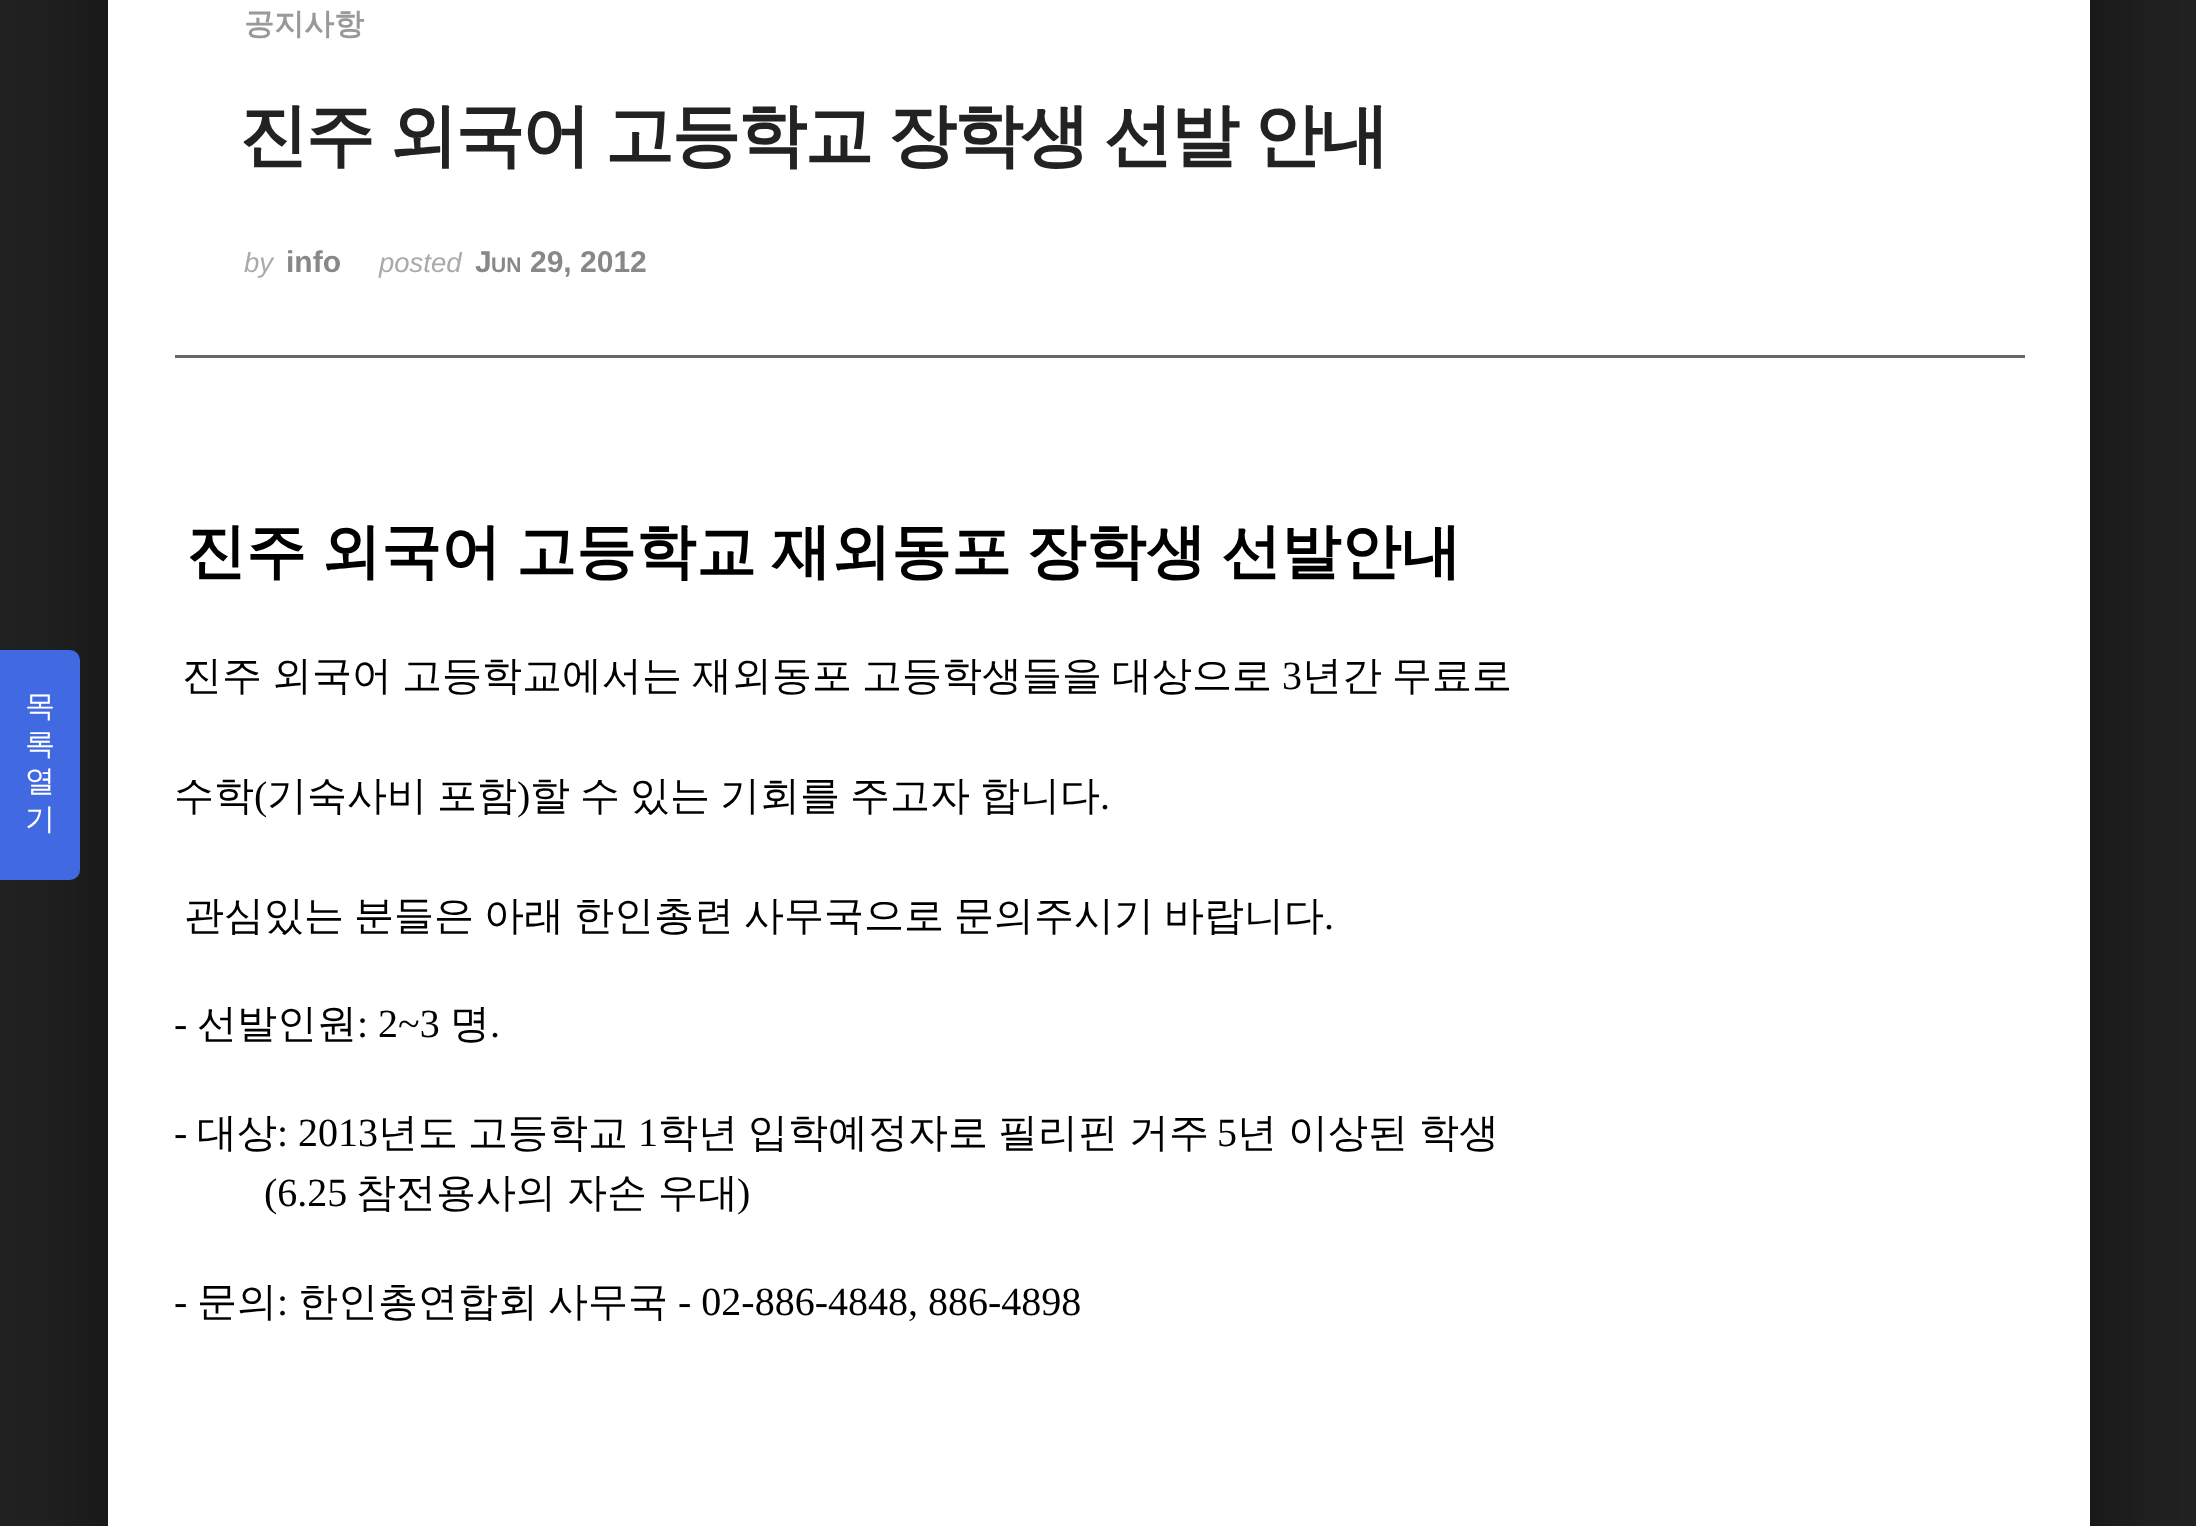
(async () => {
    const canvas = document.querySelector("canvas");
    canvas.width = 2196;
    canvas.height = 1526;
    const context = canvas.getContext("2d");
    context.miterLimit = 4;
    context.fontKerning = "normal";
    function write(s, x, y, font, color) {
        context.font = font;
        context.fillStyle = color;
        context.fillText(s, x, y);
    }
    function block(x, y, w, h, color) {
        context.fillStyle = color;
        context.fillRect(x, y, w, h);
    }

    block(0, 0, 2196, 1526, "rgb(34, 34, 34)");
    context.fillStyle = "rgba(0, 0, 0, 0.5)";
    context.filter = "blur(60px)";
    context.beginPath();
    context.rect(108, -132, 1982, 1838);
    context.fill();
    context.filter = "none";
    block(108, 0, 1982, 1526, "rgb(255, 255, 255)");
    context.fillStyle = "rgb(65, 105, 225)";
    context.beginPath();
    context.roundRect(0, 650, 80, 230, [0, 10, 10, 0]);
    context.fill();
    write("목", 25, 716, "500 30px WenQuanYi Zen Hei", "rgb(255, 255, 255)");
    write("록", 25, 754, "500 30px WenQuanYi Zen Hei", "rgb(255, 255, 255)");
    write("열", 25, 791, "500 30px WenQuanYi Zen Hei", "rgb(255, 255, 255)");
    write("기", 25, 829, "500 30px WenQuanYi Zen Hei", "rgb(255, 255, 255)");
    block(175, 355, 1850, 3, "rgb(102, 102, 102)");
    write("공지사항", 244, 34, "bold 30px WenQuanYi Zen Hei", "rgb(153, 153, 153)");
    context.letterSpacing = "-2.5px";
    context.wordSpacing = "-1.5px";
    write("진주 외국어 고등학교 장학생 선발 안내", 239, 159, "bold 69px WenQuanYi Zen Hei", "rgb(34, 34, 34)");
    context.letterSpacing = "0px";
    context.wordSpacing = "0px";
    write("by", 244, 272, "italic 27.5px Liberation Sans", "rgb(170, 170, 170)");
    write("info", 286, 272, "bold 30px Liberation Sans", "rgb(136, 136, 136)");
    write("posted", 379, 272, "italic 27.5px Liberation Sans", "rgb(170, 170, 170)");
    write("J", 475, 272, "bold 30px Liberation Sans", "rgb(136, 136, 136)");
    write("UN", 491, 272, "bold 21px Liberation Sans", "rgb(136, 136, 136)");
    write("29, 2012", 530, 272, "bold 30px Liberation Sans", "rgb(136, 136, 136)");
    context.wordSpacing = "-3px";
    write("진주 외국어 고등학교 재외동포 장학생 선발안내", 186, 572, "bold 60px WenQuanYi Zen Hei", "rgb(0, 0, 0)");
    context.wordSpacing = "-2px";
    write("진주 외국어 고등학교에서는 재외동포 고등학생들을 대상으로", 182, 689, "500 40px WenQuanYi Zen Hei", "rgb(0, 0, 0)");
    context.wordSpacing = "0px";
    write("3", 1282, 689, "40px Liberation Serif", "rgb(0, 0, 0)");
    context.wordSpacing = "-2px";
    write("년간 무료로", 1302, 689, "500 40px WenQuanYi Zen Hei", "rgb(0, 0, 0)");
    context.wordSpacing = "0px";
    write("수학", 174, 809, "500 40px WenQuanYi Zen Hei", "rgb(0, 0, 0)");
    write("(", 254, 809, "40px Liberation Serif", "rgb(0, 0, 0)");
    context.wordSpacing = "-2px";
    write("기숙사비 포함", 267, 809, "500 40px WenQuanYi Zen Hei", "rgb(0, 0, 0)");
    context.wordSpacing = "0px";
    write(")", 517, 809, "40px Liberation Serif", "rgb(0, 0, 0)");
    context.wordSpacing = "-2px";
    write("할 수 있는", 530, 809, "500 40px WenQuanYi Zen Hei", "rgb(0, 0, 0)");
    write("기회를 주고자 합니다", 720, 809, "500 40px WenQuanYi Zen Hei", "rgb(0, 0, 0)");
    context.wordSpacing = "0px";
    write(".", 1100, 809, "40px Liberation Serif", "rgb(0, 0, 0)");
    context.wordSpacing = "-2px";
    write("관심있는 분들은 아래 한인총련 사무국으로 문의주시기 바랍니다", 184, 929, "500 40px WenQuanYi Zen Hei", "rgb(0, 0, 0)");
    context.wordSpacing = "0px";
    write(".", 1324, 929, "40px Liberation Serif", "rgb(0, 0, 0)");
    write("-", 174, 1037, "40px Liberation Serif", "rgb(0, 0, 0)");
    write("선발인원", 197, 1037, "500 40px WenQuanYi Zen Hei", "rgb(0, 0, 0)");
    write(": 2~3", 357, 1037, "40px Liberation Serif", "rgb(0, 0, 0)");
    write("명", 450, 1037, "500 40px WenQuanYi Zen Hei", "rgb(0, 0, 0)");
    write(".", 490, 1037, "40px Liberation Serif", "rgb(0, 0, 0)");
    write("-", 174, 1146, "40px Liberation Serif", "rgb(0, 0, 0)");
    write("대상", 197, 1146, "500 40px WenQuanYi Zen Hei", "rgb(0, 0, 0)");
    write(": 2013", 277, 1146, "40px Liberation Serif", "rgb(0, 0, 0)");
    write("년도", 378, 1146, "500 40px WenQuanYi Zen Hei", "rgb(0, 0, 0)");
    write("고등학교", 468, 1146, "500 40px WenQuanYi Zen Hei", "rgb(0, 0, 0)");
    write("1", 638, 1146, "40px Liberation Serif", "rgb(0, 0, 0)");
    write("학년", 658, 1146, "500 40px WenQuanYi Zen Hei", "rgb(0, 0, 0)");
    write("입학예정자로", 748, 1146, "500 40px WenQuanYi Zen Hei", "rgb(0, 0, 0)");
    context.wordSpacing = "-1px";
    write("필리핀 거주", 998, 1146, "500 40px WenQuanYi Zen Hei", "rgb(0, 0, 0)");
    context.wordSpacing = "0px";
    write("5", 1217, 1146, "40px Liberation Serif", "rgb(0, 0, 0)");
    context.wordSpacing = "-1px";
    write("년 이상된 학생", 1237, 1146, "500 40px WenQuanYi Zen Hei", "rgb(0, 0, 0)");
    context.wordSpacing = "0px";
    write("(6.25", 264, 1206, "40px Liberation Serif", "rgb(0, 0, 0)");
    context.wordSpacing = "-1px";
    write("참전용사의 자손 우대", 356, 1206, "500 40px WenQuanYi Zen Hei", "rgb(0, 0, 0)");
    context.wordSpacing = "0px";
    write(")", 737, 1206, "40px Liberation Serif", "rgb(0, 0, 0)");
    write("-", 174, 1315, "40px Liberation Serif", "rgb(0, 0, 0)");
    write("문의", 197, 1315, "500 40px WenQuanYi Zen Hei", "rgb(0, 0, 0)");
    write(":", 277, 1315, "40px Liberation Serif", "rgb(0, 0, 0)");
    write("한인총연합회", 298, 1315, "500 40px WenQuanYi Zen Hei", "rgb(0, 0, 0)");
    write("사무국", 548, 1315, "500 40px WenQuanYi Zen Hei", "rgb(0, 0, 0)");
    write("- 02-886-4848, 886-4898", 678, 1315, "40px Liberation Serif", "rgb(0, 0, 0)");
})();
